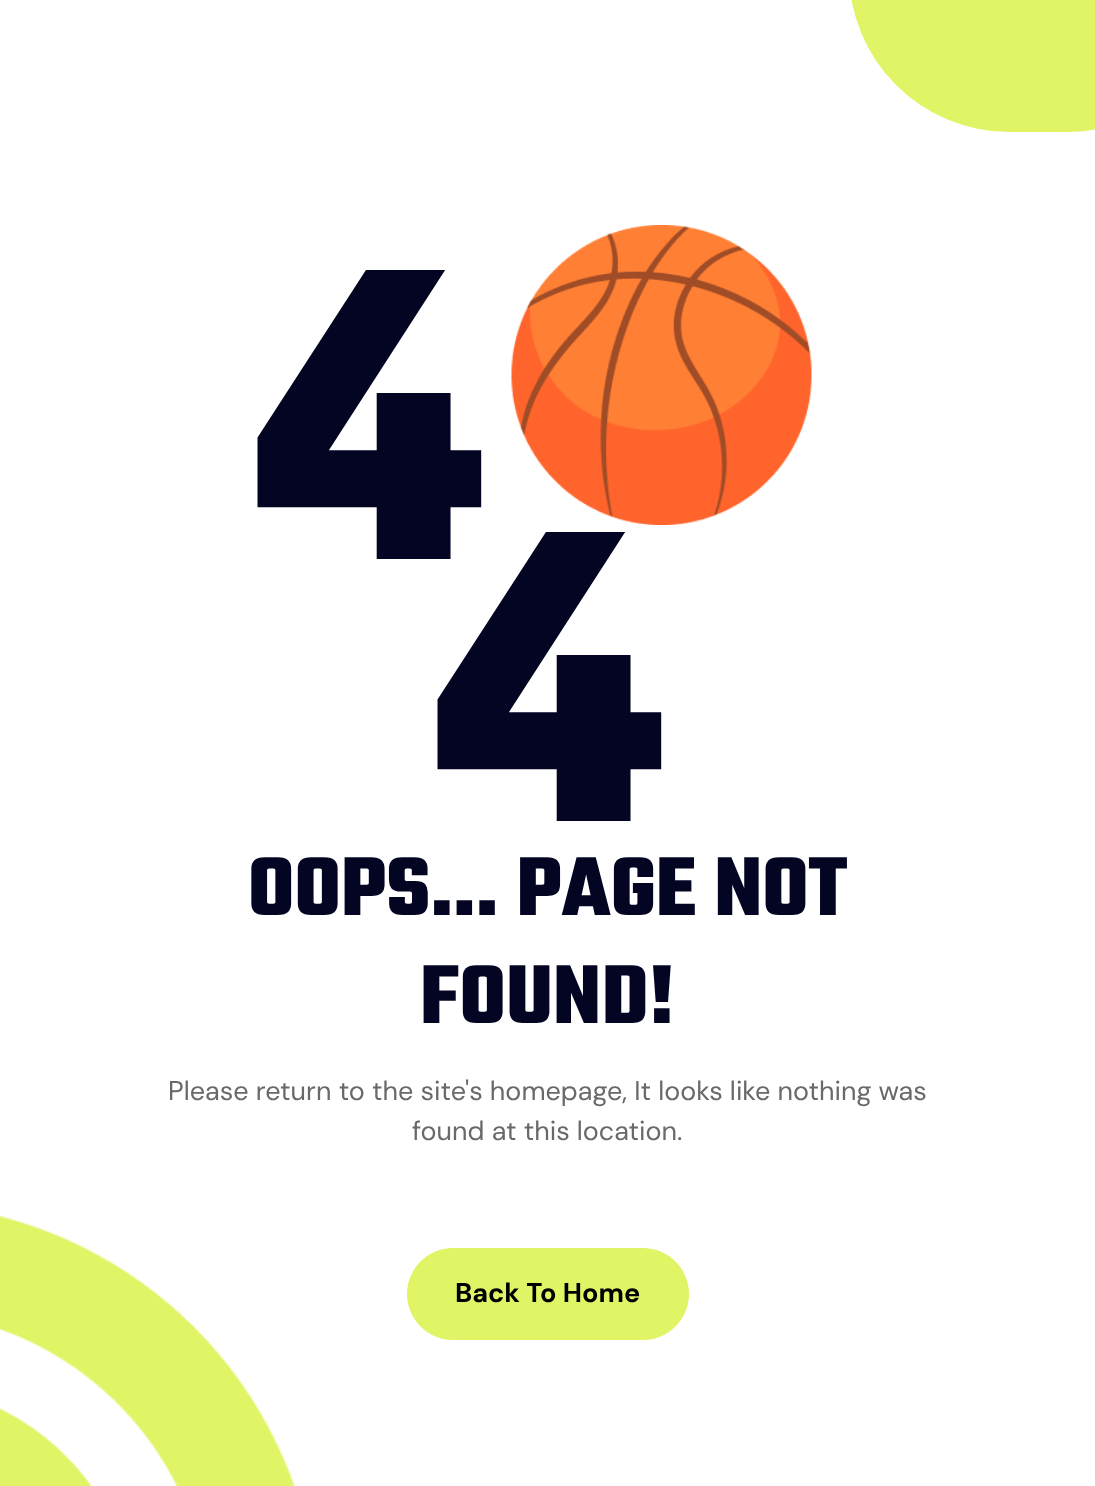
(async () => {
    const canvas = document.querySelector("canvas");
    canvas.width = 1095;
    canvas.height = 1486;
    const context = canvas.getContext("2d");
    context.miterLimit = 4;
    context.fontKerning = "normal";
    function write(s, x, y, font, color) {
        context.font = font;
        context.fillStyle = color;
        context.fillText(s, x, y);
    }
    function block(x, y, w, h, color) {
        context.fillStyle = color;
        context.fillRect(x, y, w, h);
    }
    function card(x, y, w, h, r, color) {
        context.fillStyle = color;
        context.beginPath();
        context.roundRect(x, y, w, h, r);
        context.fill();
    }
    async function photo(src, x, y, w, h) {
        const img = new Image();
        img.src = src;
        await img.decode();
        context.drawImage(img, x, y, w, h);
    }

    block(0, 0, 1095, 1486, "rgb(255, 255, 255)");
    card(849, -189, 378, 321, 189, "rgb(224, 244, 101)");
    write("4", 253, 559, "bold 450px Teko", "rgb(3, 5, 35)");
    await photo("media/1.png", 511, 225, 301, 300);
    write("4", 433, 821, "bold 450px Teko", "rgb(3, 5, 35)");
    write("OOPS... PAGE NOT", 248, 915, "bold 90px Teko", "rgb(3, 5, 35)");
    write("FOUND!", 420, 1023, "bold 90px Teko", "rgb(3, 5, 35)");
    write("Please return to the site's homepage, It looks like nothing was", 168, 1100, "27px DM Sans", "rgb(105, 105, 105)");
    write("found at this location.", 412, 1140, "27px DM Sans", "rgb(105, 105, 105)");
    card(407, 1248, 282, 92, 46, "rgb(224, 244, 101)");
    write("Back To Home", 455, 1302, "bold 27px DM Sans", "rgb(0, 0, 0)");
    await photo("media/2.png", 0, 1215, 296, 271);
})();
